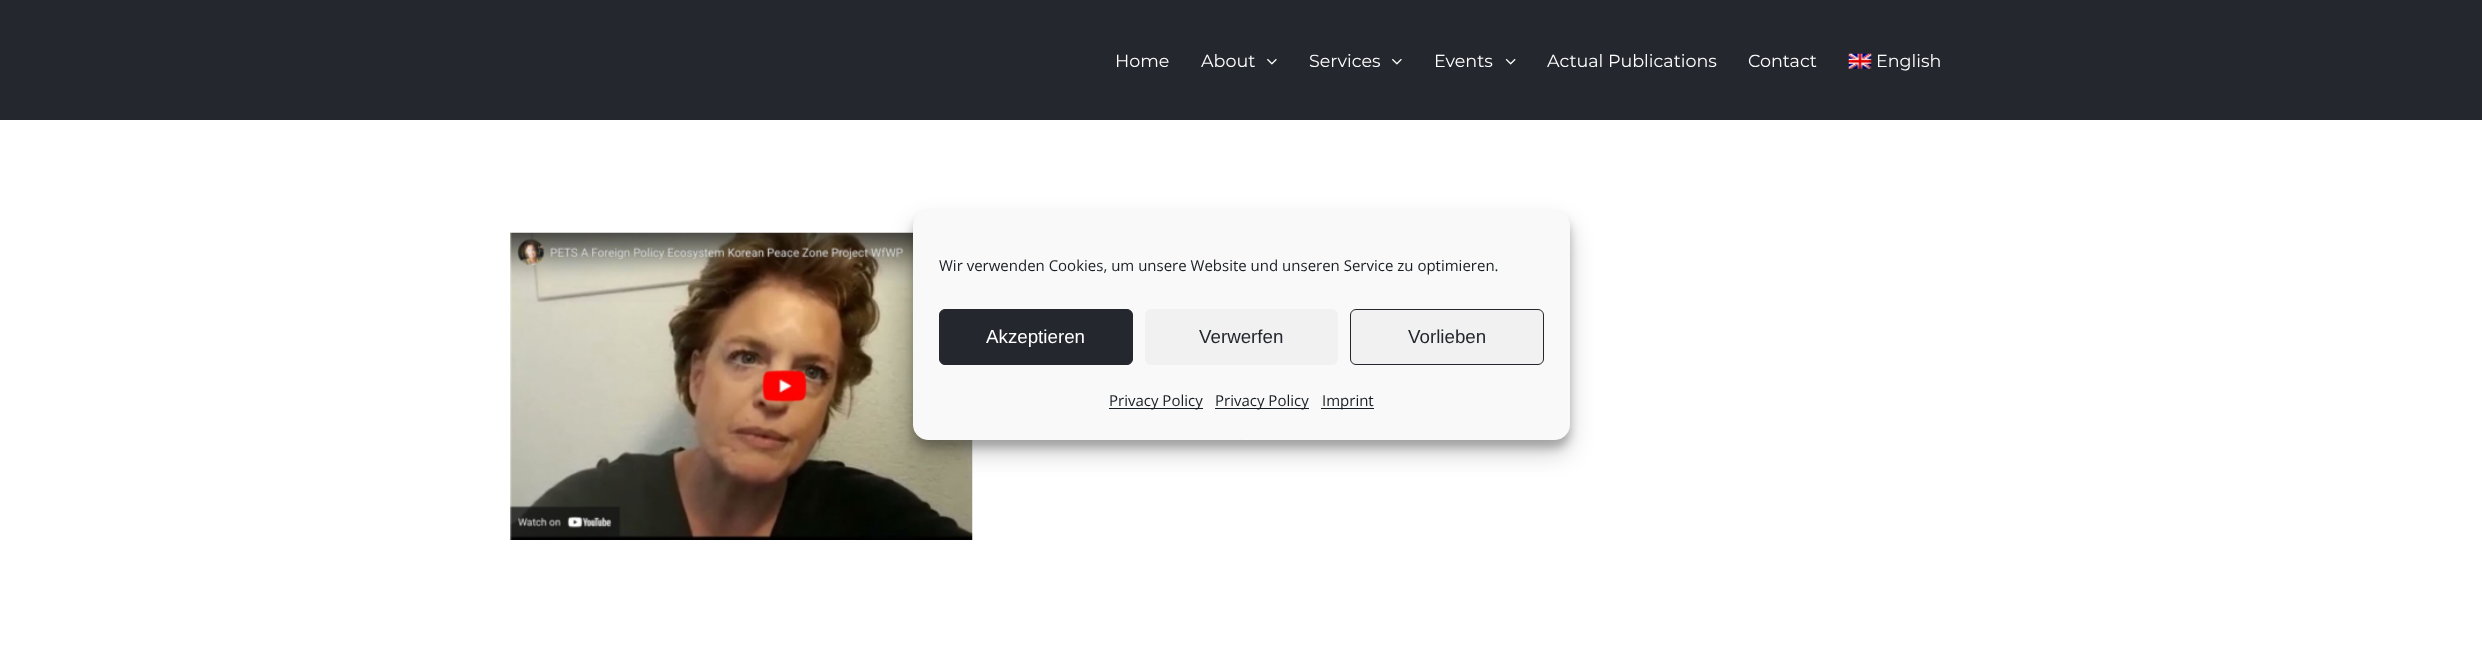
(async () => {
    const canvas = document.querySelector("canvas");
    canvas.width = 2482;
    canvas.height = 650;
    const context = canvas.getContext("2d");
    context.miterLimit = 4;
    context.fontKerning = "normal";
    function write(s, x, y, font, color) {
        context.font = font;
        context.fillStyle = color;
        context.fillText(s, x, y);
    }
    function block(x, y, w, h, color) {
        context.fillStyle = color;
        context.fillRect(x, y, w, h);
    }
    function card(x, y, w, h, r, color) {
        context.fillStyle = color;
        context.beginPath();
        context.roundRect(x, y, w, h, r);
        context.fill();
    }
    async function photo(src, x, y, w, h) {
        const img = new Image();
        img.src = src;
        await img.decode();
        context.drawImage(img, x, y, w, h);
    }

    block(0, 0, 2482, 650, "rgb(255, 255, 255)");
    block(0, 0, 2482, 120, "rgb(36, 39, 45)");
    write("Home", 1115, 67, "100 17.5px Montserrat", "rgb(255, 255, 255)");
    write("About", 1201, 67, "100 17.5px Montserrat", "rgb(255, 255, 255)");
    await photo("media/1.png", 1267, 58, 10, 7);
    write("Services", 1309, 67, "100 17.5px Montserrat", "rgb(255, 255, 255)");
    await photo("media/1.png", 1392, 58, 10, 7);
    write("Events", 1434, 67, "100 17.5px Montserrat", "rgb(255, 255, 255)");
    await photo("media/2.png", 1505, 58, 11, 7);
    write("Actual Publications", 1547, 67, "100 17.5px Montserrat", "rgb(255, 255, 255)");
    write("Contact", 1748, 67, "100 17.5px Montserrat", "rgb(255, 255, 255)");
    await photo("media/3.png", 1848, 53, 24, 16);
    write("English", 1876, 67, "100 17.5px Montserrat", "rgb(255, 255, 255)");
    await photo("media/4.png", 510, 232, 463, 308);
    context.fillStyle = "rgba(0, 0, 0, 0.23)";
    context.filter = "blur(4px)";
    context.beginPath();
    context.roundRect(913, 218, 657, 230, 15);
    context.fill();
    context.filter = "none";
    context.fillStyle = "rgba(0, 0, 0, 0.19)";
    context.filter = "blur(12.5px)";
    context.beginPath();
    context.roundRect(913, 223, 657, 230, 15);
    context.fill();
    context.filter = "none";
    context.fillStyle = "rgb(249, 249, 249)";
    context.beginPath();
    context.roundRect(913.5, 210.5, 656, 229, 14.5);
    context.fill();
    context.strokeStyle = "rgb(249, 249, 249)";
    context.stroke();
    write("Wir verwenden Cookies, um unsere Website und unseren Service zu optimieren.", 939, 271, "15px Open Sans", "rgb(25, 30, 35)");
    context.fillStyle = "rgb(36, 39, 45)";
    context.beginPath();
    context.roundRect(939.5, 309.5, 193, 55, 5.5);
    context.fill();
    context.strokeStyle = "rgb(36, 39, 45)";
    context.stroke();
    write("Akzeptieren", 986, 343, "18.75px Liberation Sans", "rgb(255, 255, 255)");
    card(1145, 309, 193, 56, 6, "rgb(241, 241, 241)");
    write("Verwerfen", 1199, 343, "18.75px Liberation Sans", "rgb(36, 39, 45)");
    context.fillStyle = "rgb(241, 241, 241)";
    context.beginPath();
    context.roundRect(1350.5, 309.5, 193, 55, 5.5);
    context.fill();
    context.stroke();
    write("Vorlieben", 1408, 343, "18.75px Liberation Sans", "rgb(36, 39, 45)");
    block(1109, 408, 94, 1, "rgb(25, 30, 35)");
    write("Privacy Policy", 1109, 406, "15px Open Sans", "rgb(25, 30, 35)");
    block(1215, 408, 94, 1, "rgb(25, 30, 35)");
    write("Privacy Policy", 1215, 406, "15px Open Sans", "rgb(25, 30, 35)");
    block(1321, 408, 53, 1, "rgb(25, 30, 35)");
    write("Imprint", 1322, 406, "15px Open Sans", "rgb(25, 30, 35)");
})();
